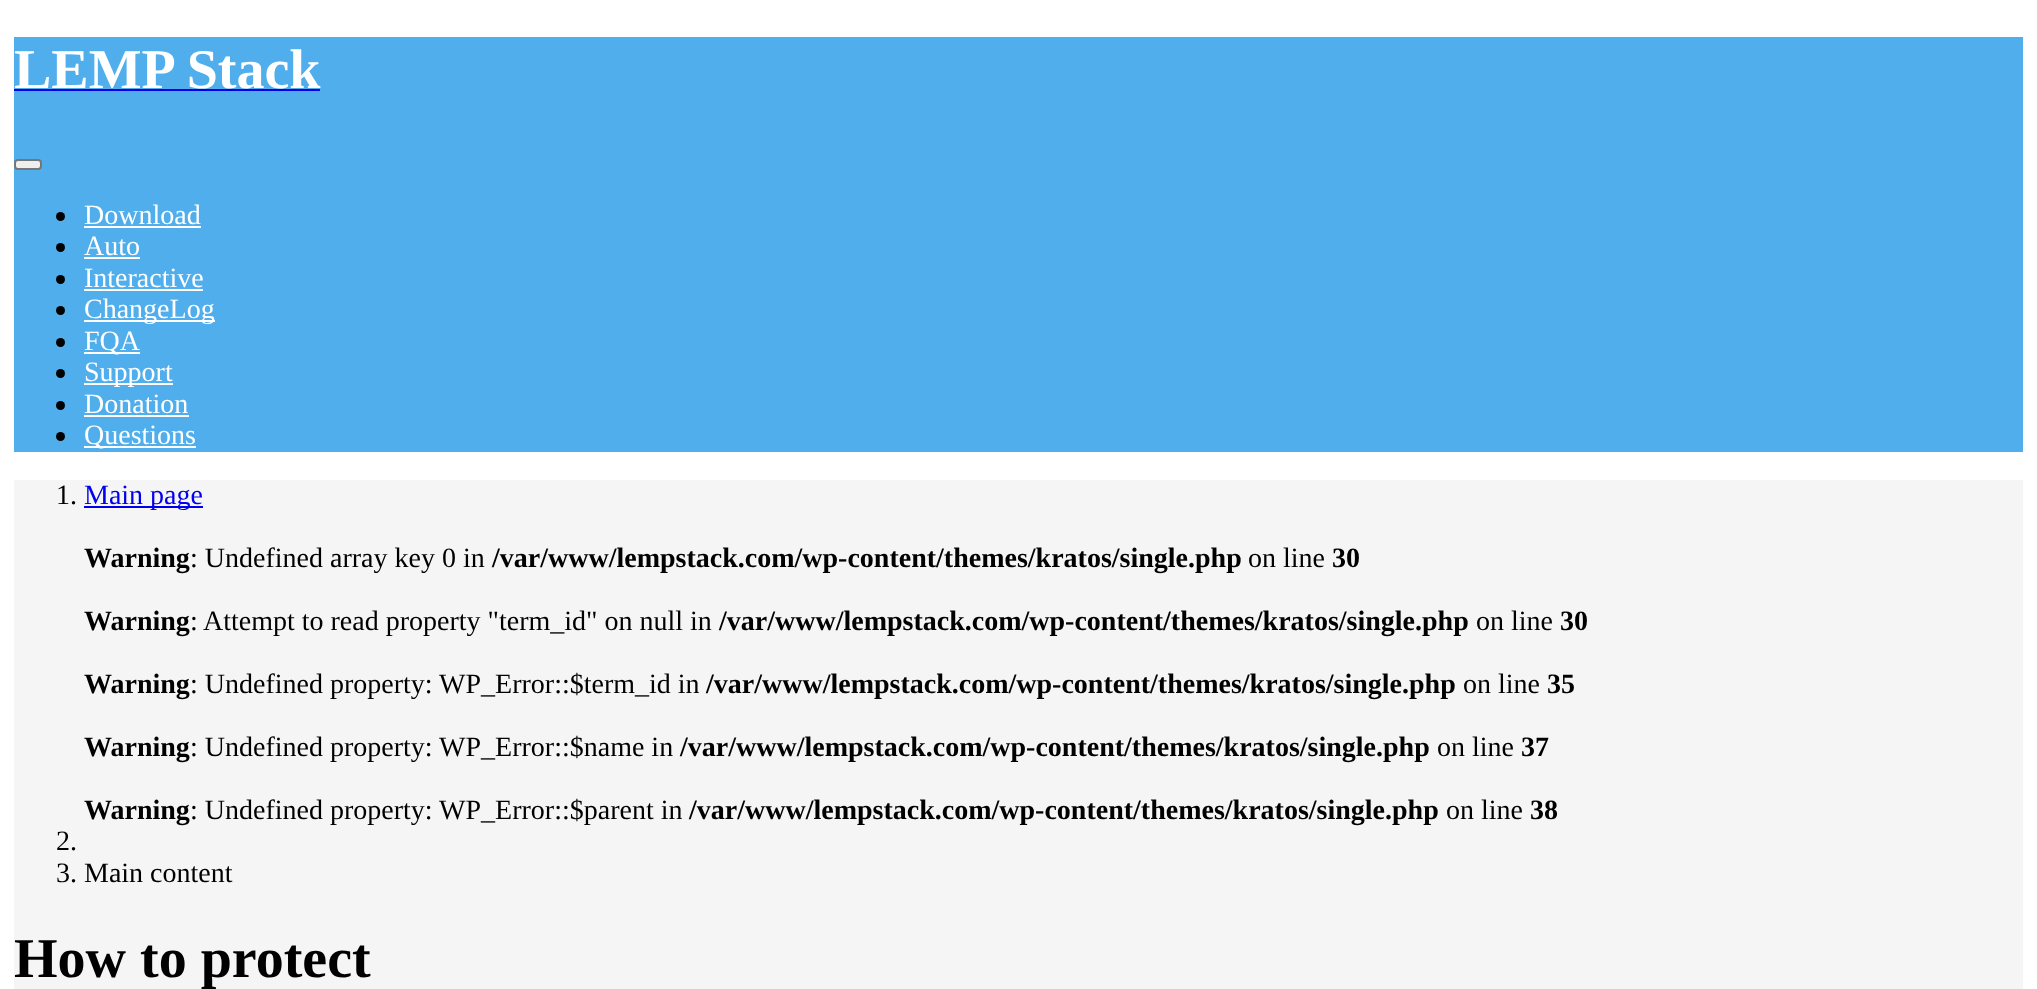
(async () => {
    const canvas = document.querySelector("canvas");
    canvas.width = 2037;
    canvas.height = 989;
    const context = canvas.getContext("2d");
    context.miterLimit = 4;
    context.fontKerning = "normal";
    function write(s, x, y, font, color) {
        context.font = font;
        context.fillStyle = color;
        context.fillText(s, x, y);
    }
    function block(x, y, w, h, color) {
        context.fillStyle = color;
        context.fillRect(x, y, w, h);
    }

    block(0, 0, 2037, 989, "rgb(255, 255, 255)");
    block(14, 37, 2009, 415, "rgb(81, 174, 236)");
    write("LEMP Stack", 14, 88, "bold 56px Liberation Serif", "rgb(255, 255, 255)");
    block(14, 89, 306, 2, "rgb(0, 0, 238)");
    context.fillStyle = "rgb(239, 239, 239)";
    context.beginPath();
    context.roundRect(15, 160, 26, 9, 3);
    context.fill();
    context.strokeStyle = "rgb(118, 118, 118)";
    context.lineWidth = 2;
    context.stroke();
    context.fillStyle = "rgb(0, 0, 0)";
    context.beginPath();
    context.arc(60.5, 216.5, 4.5, 0, Math.PI * 2);
    context.fill();
    write("Download", 84, 224, "28px Liberation Serif", "rgb(255, 255, 255)");
    block(84, 226, 117, 2, "rgb(255, 255, 255)");
    context.fillStyle = "rgb(0, 0, 0)";
    context.beginPath();
    context.arc(60.5, 247.5, 4.5, 0, Math.PI * 2);
    context.fill();
    write("Auto", 84, 255, "28px Liberation Serif", "rgb(255, 255, 255)");
    block(84, 257, 56, 2, "rgb(255, 255, 255)");
    context.fillStyle = "rgb(0, 0, 0)";
    context.beginPath();
    context.arc(60.5, 279.5, 4.5, 0, Math.PI * 2);
    context.fill();
    write("Interactive", 84, 287, "28px Liberation Serif", "rgb(255, 255, 255)");
    block(84, 289, 119, 2, "rgb(255, 255, 255)");
    context.fillStyle = "rgb(0, 0, 0)";
    context.beginPath();
    context.arc(60.5, 310.5, 4.5, 0, Math.PI * 2);
    context.fill();
    block(84, 320, 131, 2, "rgb(255, 255, 255)");
    write("ChangeLog", 84, 318, "28px Liberation Serif", "rgb(255, 255, 255)");
    context.fillStyle = "rgb(0, 0, 0)";
    context.beginPath();
    context.arc(60.5, 342.5, 4.5, 0, Math.PI * 2);
    context.fill();
    block(84, 352, 56, 2, "rgb(255, 255, 255)");
    write("FQA", 84, 350, "28px Liberation Serif", "rgb(255, 255, 255)");
    context.fillStyle = "rgb(0, 0, 0)";
    context.beginPath();
    context.arc(60.5, 373.5, 4.5, 0, Math.PI * 2);
    context.fill();
    block(84, 383, 89, 2, "rgb(255, 255, 255)");
    write("Support", 84, 381, "28px Liberation Serif", "rgb(255, 255, 255)");
    context.fillStyle = "rgb(0, 0, 0)";
    context.beginPath();
    context.arc(60.5, 405.5, 4.5, 0, Math.PI * 2);
    context.fill();
    write("Donation", 84, 413, "28px Liberation Serif", "rgb(255, 255, 255)");
    block(84, 415, 105, 2, "rgb(255, 255, 255)");
    context.fillStyle = "rgb(0, 0, 0)";
    context.beginPath();
    context.arc(60.5, 436.5, 4.5, 0, Math.PI * 2);
    context.fill();
    block(84, 446, 112, 2, "rgb(255, 255, 255)");
    write("Questions", 84, 444, "28px Liberation Serif", "rgb(255, 255, 255)");
    block(14, 480, 2009, 509, "rgb(245, 245, 245)");
    write("1.", 56, 504, "28px Liberation Serif", "rgb(0, 0, 0)");
    block(84, 506, 119, 2, "rgb(0, 0, 238)");
    write("Main page", 84, 504, "28px Liberation Serif", "rgb(0, 0, 238)");
    write("Warning", 84, 567, "bold 28px Liberation Serif", "rgb(0, 0, 0)");
    write(": Undefined array key 0 in", 190, 567, "28px Liberation Serif", "rgb(0, 0, 0)");
    write("/var/www/lempstack.com/wp-content/themes/kratos/single.php", 492, 567, "bold 28px Liberation Serif", "rgb(0, 0, 0)");
    write("on line", 1248, 567, "28px Liberation Serif", "rgb(0, 0, 0)");
    write("30", 1332, 567, "bold 28px Liberation Serif", "rgb(0, 0, 0)");
    write("Warning", 84, 630, "bold 28px Liberation Serif", "rgb(0, 0, 0)");
    write(":", 190, 630, "28px Liberation Serif", "rgb(0, 0, 0)");
    write("Attempt to read property \"term_id\" on null in", 203, 630, "28px Liberation Serif", "rgb(0, 0, 0)");
    write("/var/www/lempstack.com/wp-content/themes/kratos/single.php", 719, 630, "bold 28px Liberation Serif", "rgb(0, 0, 0)");
    write("on line", 1476, 630, "28px Liberation Serif", "rgb(0, 0, 0)");
    write("30", 1560, 630, "bold 28px Liberation Serif", "rgb(0, 0, 0)");
    write("Warning", 84, 693, "bold 28px Liberation Serif", "rgb(0, 0, 0)");
    write(": Undefined property: WP_Error::$term_id in", 190, 693, "28px Liberation Serif", "rgb(0, 0, 0)");
    write("/var/www/lempstack.com/wp-content/themes/kratos/single.php", 706, 693, "bold 28px Liberation Serif", "rgb(0, 0, 0)");
    write("on line", 1463, 693, "28px Liberation Serif", "rgb(0, 0, 0)");
    write("35", 1547, 693, "bold 28px Liberation Serif", "rgb(0, 0, 0)");
    write("Warning", 84, 756, "bold 28px Liberation Serif", "rgb(0, 0, 0)");
    write(": Undefined property: WP_Error::$name in", 190, 756, "28px Liberation Serif", "rgb(0, 0, 0)");
    write("/var/www/lempstack.com/wp-content/themes/kratos/single.php", 680, 756, "bold 28px Liberation Serif", "rgb(0, 0, 0)");
    write("on line", 1437, 756, "28px Liberation Serif", "rgb(0, 0, 0)");
    write("37", 1521, 756, "bold 28px Liberation Serif", "rgb(0, 0, 0)");
    write("Warning", 84, 819, "bold 28px Liberation Serif", "rgb(0, 0, 0)");
    write(": Undefined property: WP_Error::$parent in", 190, 819, "28px Liberation Serif", "rgb(0, 0, 0)");
    write("/var/www/lempstack.com/wp-content/themes/kratos/single.php", 689, 819, "bold 28px Liberation Serif", "rgb(0, 0, 0)");
    write("on line", 1446, 819, "28px Liberation Serif", "rgb(0, 0, 0)");
    write("38", 1530, 819, "bold 28px Liberation Serif", "rgb(0, 0, 0)");
    write("2.", 56, 850, "28px Liberation Serif", "rgb(0, 0, 0)");
    write("3. Main content", 56, 882, "28px Liberation Serif", "rgb(0, 0, 0)");
    write("How to protect", 14, 977, "bold 56px Liberation Serif", "rgb(0, 0, 0)");
})();
